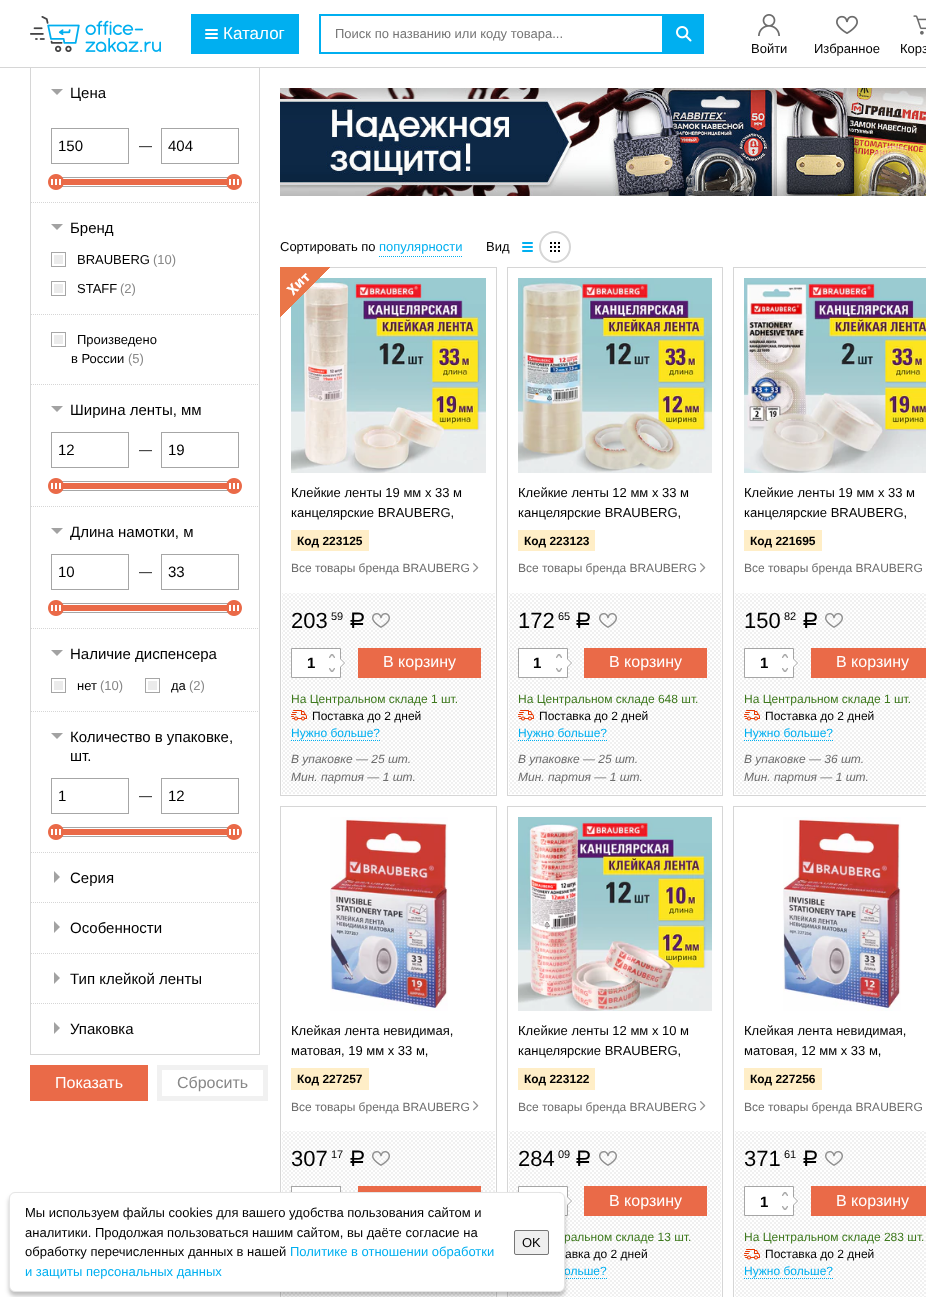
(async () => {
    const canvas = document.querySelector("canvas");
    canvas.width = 926;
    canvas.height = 1297;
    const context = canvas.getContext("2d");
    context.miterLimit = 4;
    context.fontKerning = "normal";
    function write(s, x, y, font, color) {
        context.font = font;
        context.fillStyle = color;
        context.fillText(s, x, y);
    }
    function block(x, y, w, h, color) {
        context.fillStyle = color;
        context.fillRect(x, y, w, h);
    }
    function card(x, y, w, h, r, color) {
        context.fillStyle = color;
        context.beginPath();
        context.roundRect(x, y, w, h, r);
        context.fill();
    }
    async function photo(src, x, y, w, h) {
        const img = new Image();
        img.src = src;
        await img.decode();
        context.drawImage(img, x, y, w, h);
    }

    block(0, 0, 926, 1297, "rgb(255, 255, 255)");
    context.strokeStyle = "rgb(214, 214, 214)";
    context.strokeRect(30.5, 67.5, 229, 987);
    block(0, 67, 926, 1, "rgb(214, 214, 214)");
    await photo("media/1.png", 30, 16, 131, 36);
    block(191, 14, 108, 40, "rgb(0, 175, 240)");
    card(205, 33, 13, 2, 1, "rgb(255, 255, 255)");
    card(205, 29, 13, 2, 1, "rgb(255, 255, 255)");
    card(205, 37, 13, 2, 1, "rgb(255, 255, 255)");
    write("Каталог", 223, 39, "17px Liberation Sans", "rgb(255, 255, 255)");
    context.strokeStyle = "rgb(0, 175, 240)";
    context.lineWidth = 2;
    context.strokeRect(320, 15, 383, 38);
    write("Поиск по названию или коду товара...", 335, 38, "13px Liberation Sans", "rgb(117, 117, 117)");
    block(662, 16, 40, 36, "rgb(0, 175, 240)");
    await photo("media/2.png", 676, 26, 16, 16);
    await photo("media/3.png", 758, 14, 22, 22);
    write("Войти", 751, 53, "13px Liberation Sans", "rgb(0, 0, 0)");
    await photo("media/4.png", 836, 15, 22, 19);
    write("Избранное", 814, 53, "13px Liberation Sans", "rgb(0, 0, 0)");
    await photo("media/5.png", 913, 15, 13, 20);
    write("Корз", 900, 53, "13px Liberation Sans", "rgb(0, 0, 0)");
    context.fillStyle = "rgb(162, 162, 162)";
    context.beginPath();
    context.moveTo(51, 89);
    context.lineTo(63, 89);
    context.lineTo(57, 95);
    context.closePath();
    context.fill();
    write("Цена", 70, 98, "15px Liberation Sans", "rgb(0, 0, 0)");
    context.strokeStyle = "rgb(166, 166, 166)";
    context.lineWidth = 1;
    context.strokeRect(51.5, 128.5, 77, 35);
    write("150", 58, 151, "15px Liberation Sans", "rgb(0, 0, 0)");
    write("—", 139, 150, "13px Liberation Sans", "rgb(0, 0, 0)");
    context.strokeRect(161.5, 128.5, 77, 35);
    write("404", 168, 151, "15px Liberation Sans", "rgb(0, 0, 0)");
    context.strokeRect(51.5, 177.5, 187, 9);
    block(63, 179, 164, 6, "rgb(234, 106, 72)");
    await photo("media/6.png", 48, 174, 16, 16);
    await photo("media/7.png", 226, 174, 16, 16);
    context.beginPath();
    context.moveTo(31, 202.5);
    context.lineTo(259, 202.5);
    context.strokeStyle = "rgb(214, 214, 214)";
    context.setLineDash([1, 1]);
    context.stroke();
    context.fillStyle = "rgb(162, 162, 162)";
    context.beginPath();
    context.moveTo(51, 224);
    context.lineTo(63, 224);
    context.lineTo(57, 230);
    context.closePath();
    context.fill();
    write("Бренд", 70, 233, "15px Liberation Sans", "rgb(0, 0, 0)");
    block(54, 255, 9, 9, "rgb(235, 235, 235)");
    context.strokeStyle = "rgb(166, 166, 166)";
    context.setLineDash([]);
    context.strokeRect(51.5, 252.5, 14, 14);
    write("BRAUBERG", 77, 264, "13px Liberation Sans", "rgb(0, 0, 0)");
    write("(10)", 153, 264, "13px Liberation Sans", "rgb(136, 136, 136)");
    block(54, 284, 9, 9, "rgb(235, 235, 235)");
    context.strokeRect(51.5, 281.5, 14, 14);
    write("STAFF", 77, 293, "13px Liberation Sans", "rgb(0, 0, 0)");
    write("(2)", 120, 293, "13px Liberation Sans", "rgb(136, 136, 136)");
    context.beginPath();
    context.moveTo(31, 314.5);
    context.lineTo(259, 314.5);
    context.strokeStyle = "rgb(214, 214, 214)";
    context.setLineDash([1, 1]);
    context.stroke();
    block(54, 335, 9, 9, "rgb(235, 235, 235)");
    context.strokeStyle = "rgb(166, 166, 166)";
    context.setLineDash([]);
    context.strokeRect(51.5, 332.5, 14, 14);
    write("Произведено", 77, 344, "13px Liberation Sans", "rgb(0, 0, 0)");
    write("в России", 71, 363, "13px Liberation Sans", "rgb(0, 0, 0)");
    write("(5)", 128, 363, "13px Liberation Sans", "rgb(136, 136, 136)");
    context.beginPath();
    context.moveTo(31, 384.5);
    context.lineTo(259, 384.5);
    context.strokeStyle = "rgb(214, 214, 214)";
    context.setLineDash([1, 1]);
    context.stroke();
    context.fillStyle = "rgb(162, 162, 162)";
    context.beginPath();
    context.moveTo(51, 406);
    context.lineTo(63, 406);
    context.lineTo(57, 412);
    context.closePath();
    context.fill();
    write("Ширина ленты, мм", 70, 415, "15px Liberation Sans", "rgb(0, 0, 0)");
    context.strokeStyle = "rgb(166, 166, 166)";
    context.setLineDash([]);
    context.strokeRect(51.5, 432.5, 77, 35);
    write("12", 58, 455, "15px Liberation Sans", "rgb(0, 0, 0)");
    write("—", 139, 454, "13px Liberation Sans", "rgb(0, 0, 0)");
    context.strokeRect(161.5, 432.5, 77, 35);
    write("19", 168, 455, "15px Liberation Sans", "rgb(0, 0, 0)");
    context.strokeRect(51.5, 481.5, 187, 9);
    block(63, 483, 164, 6, "rgb(234, 106, 72)");
    await photo("media/6.png", 48, 478, 16, 16);
    await photo("media/7.png", 226, 478, 16, 16);
    context.beginPath();
    context.moveTo(31, 506.5);
    context.lineTo(259, 506.5);
    context.strokeStyle = "rgb(214, 214, 214)";
    context.setLineDash([1, 1]);
    context.stroke();
    context.fillStyle = "rgb(162, 162, 162)";
    context.beginPath();
    context.moveTo(51, 528);
    context.lineTo(63, 528);
    context.lineTo(57, 534);
    context.closePath();
    context.fill();
    write("Длина намотки, м", 70, 537, "15px Liberation Sans", "rgb(0, 0, 0)");
    context.strokeStyle = "rgb(166, 166, 166)";
    context.setLineDash([]);
    context.strokeRect(51.5, 554.5, 77, 35);
    write("10", 58, 577, "15px Liberation Sans", "rgb(0, 0, 0)");
    write("—", 139, 576, "13px Liberation Sans", "rgb(0, 0, 0)");
    context.strokeRect(161.5, 554.5, 77, 35);
    write("33", 168, 577, "15px Liberation Sans", "rgb(0, 0, 0)");
    context.strokeRect(51.5, 603.5, 187, 9);
    block(63, 605, 164, 6, "rgb(234, 106, 72)");
    await photo("media/6.png", 48, 600, 16, 16);
    await photo("media/7.png", 226, 600, 16, 16);
    context.beginPath();
    context.moveTo(31, 628.5);
    context.lineTo(259, 628.5);
    context.strokeStyle = "rgb(214, 214, 214)";
    context.setLineDash([1, 1]);
    context.stroke();
    context.fillStyle = "rgb(162, 162, 162)";
    context.beginPath();
    context.moveTo(51, 650);
    context.lineTo(63, 650);
    context.lineTo(57, 656);
    context.closePath();
    context.fill();
    write("Наличие диспенсера", 70, 659, "15px Liberation Sans", "rgb(0, 0, 0)");
    block(54, 681, 9, 9, "rgb(235, 235, 235)");
    context.strokeStyle = "rgb(166, 166, 166)";
    context.setLineDash([]);
    context.strokeRect(51.5, 678.5, 14, 14);
    write("нет", 77, 690, "13px Liberation Sans", "rgb(0, 0, 0)");
    write("(10)", 100, 690, "13px Liberation Sans", "rgb(136, 136, 136)");
    block(148, 681, 9, 9, "rgb(235, 235, 235)");
    context.strokeRect(145.5, 678.5, 14, 14);
    write("да", 171, 690, "13px Liberation Sans", "rgb(0, 0, 0)");
    write("(2)", 189, 690, "13px Liberation Sans", "rgb(136, 136, 136)");
    context.beginPath();
    context.moveTo(31, 711.5);
    context.lineTo(259, 711.5);
    context.strokeStyle = "rgb(214, 214, 214)";
    context.setLineDash([1, 1]);
    context.stroke();
    context.fillStyle = "rgb(162, 162, 162)";
    context.beginPath();
    context.moveTo(51, 733);
    context.lineTo(63, 733);
    context.lineTo(57, 739);
    context.closePath();
    context.fill();
    write("Количество в упаковке,", 70, 742, "15px Liberation Sans", "rgb(0, 0, 0)");
    write("шт.", 70, 761, "15px Liberation Sans", "rgb(0, 0, 0)");
    context.strokeStyle = "rgb(166, 166, 166)";
    context.setLineDash([]);
    context.strokeRect(51.5, 778.5, 77, 35);
    write("1", 58, 801, "15px Liberation Sans", "rgb(0, 0, 0)");
    write("—", 139, 800, "13px Liberation Sans", "rgb(0, 0, 0)");
    context.strokeRect(161.5, 778.5, 77, 35);
    write("12", 168, 801, "15px Liberation Sans", "rgb(0, 0, 0)");
    context.strokeRect(51.5, 827.5, 187, 9);
    block(63, 829, 164, 6, "rgb(234, 106, 72)");
    await photo("media/6.png", 48, 824, 16, 16);
    await photo("media/7.png", 226, 824, 16, 16);
    context.beginPath();
    context.moveTo(31, 852.5);
    context.lineTo(259, 852.5);
    context.strokeStyle = "rgb(214, 214, 214)";
    context.setLineDash([1, 1]);
    context.stroke();
    context.fillStyle = "rgb(162, 162, 162)";
    context.beginPath();
    context.moveTo(54, 883);
    context.lineTo(54, 871);
    context.lineTo(60, 877);
    context.closePath();
    context.fill();
    write("Серия", 70, 883, "15px Liberation Sans", "rgb(0, 0, 0)");
    context.beginPath();
    context.moveTo(31, 902.5);
    context.lineTo(259, 902.5);
    context.stroke();
    context.fillStyle = "rgb(162, 162, 162)";
    context.beginPath();
    context.moveTo(54, 933);
    context.lineTo(54, 921);
    context.lineTo(60, 927);
    context.closePath();
    context.fill();
    write("Особенности", 70, 933, "15px Liberation Sans", "rgb(0, 0, 0)");
    context.beginPath();
    context.moveTo(31, 953.5);
    context.lineTo(259, 953.5);
    context.stroke();
    context.fillStyle = "rgb(162, 162, 162)";
    context.beginPath();
    context.moveTo(54, 984);
    context.lineTo(54, 972);
    context.lineTo(60, 978);
    context.closePath();
    context.fill();
    write("Тип клейкой ленты", 70, 984, "15px Liberation Sans", "rgb(0, 0, 0)");
    context.beginPath();
    context.moveTo(31, 1003.5);
    context.lineTo(259, 1003.5);
    context.stroke();
    context.fillStyle = "rgb(162, 162, 162)";
    context.beginPath();
    context.moveTo(54, 1034);
    context.lineTo(54, 1022);
    context.lineTo(60, 1028);
    context.closePath();
    context.fill();
    write("Упаковка", 70, 1034, "15px Liberation Sans", "rgb(0, 0, 0)");
    block(30, 1065, 118, 36, "rgb(234, 106, 72)");
    write("Показать", 55, 1088, "16px Liberation Sans", "rgb(255, 255, 255)");
    context.strokeStyle = "rgb(241, 241, 241)";
    context.lineWidth = 5;
    context.setLineDash([]);
    context.strokeRect(159.5, 1067.5, 106, 31);
    write("Сбросить", 177, 1088, "16px Liberation Sans", "rgb(136, 136, 136)");
    await photo("media/8.png", 280, 88, 646, 108);
    write("Сортировать по", 280, 251, "13px Liberation Sans", "rgb(0, 0, 0)");
    context.beginPath();
    context.moveTo(379, 256.5);
    context.lineTo(463, 256.5);
    context.strokeStyle = "rgb(0, 175, 240)";
    context.lineWidth = 1;
    context.setLineDash([1, 1]);
    context.stroke();
    write("популярности", 379, 251, "13px Liberation Sans", "rgb(0, 175, 240)");
    write("Вид", 486, 251, "13px Liberation Sans", "rgb(0, 0, 0)");
    await photo("media/9.png", 522, 242, 11, 10);
    context.beginPath();
    context.arc(555, 247, 15, 0, Math.PI * 2);
    context.strokeStyle = "rgb(214, 214, 214)";
    context.lineWidth = 2;
    context.setLineDash([]);
    context.stroke();
    await photo("media/10.png", 550, 242, 10, 10);
    context.lineWidth = 1;
    context.strokeRect(280.5, 267.5, 216, 528);
    await photo("media/12.png", 291, 278, 195, 195);
    await photo("media/11.png", 280, 267, 50, 50);
    write("Клейкие ленты 19 мм х 33 м", 291, 497, "13px Liberation Sans", "rgb(0, 0, 0)");
    write("канцелярские BRAUBERG,", 291, 517, "13px Liberation Sans", "rgb(0, 0, 0)");
    block(291, 530, 78, 21, "rgb(255, 238, 199)");
    write("Код 223125", 297, 545, "bold 12px Liberation Sans", "rgb(0, 0, 0)");
    write("Все товары бренда BRAUBERG", 291, 572, "12px Liberation Sans", "rgb(108, 108, 108)");
    await photo("media/13.png", 473, 563, 6, 10);
    await photo("media/14.png", 282, 593, 213, 201);
    write("203", 291, 628, "22px Liberation Sans", "rgb(0, 0, 0)");
    write("59", 331, 620, "11px Liberation Sans", "rgb(0, 0, 0)");
    write("руб", 347, 628, "22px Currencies", "rgb(0, 0, 0)");
    await photo("media/15.png", 372, 613, 18, 15);
    context.fillStyle = "rgb(255, 255, 255)";
    context.beginPath();
    context.rect(291.5, 648.5, 49, 29);
    context.fill();
    context.strokeStyle = "rgb(166, 166, 166)";
    context.stroke();
    write("1", 307, 668, "bold 15px Liberation Sans", "rgb(0, 0, 0)");
    await photo("media/16.png", 329, 654, 6, 4);
    await photo("media/17.png", 329, 668, 6, 4);
    context.fillStyle = "rgb(166, 166, 166)";
    context.beginPath();
    context.moveTo(340, 668);
    context.lineTo(340, 658);
    context.lineTo(345, 663);
    context.closePath();
    context.fill();
    context.fillStyle = "rgb(255, 255, 255)";
    context.beginPath();
    context.moveTo(340, 667);
    context.lineTo(340, 659);
    context.lineTo(344, 663);
    context.closePath();
    context.fill();
    block(358, 648, 123, 30, "rgb(234, 106, 72)");
    write("В корзину", 383, 667, "16px Liberation Sans", "rgb(255, 255, 255)");
    write("На Центральном складе 1 шт.", 291, 703, "12px Liberation Sans", "rgb(62, 121, 30)");
    await photo("media/18.png", 291, 710, 16, 11);
    write("Поставка до 2 дней", 312, 720, "12px Liberation Sans", "rgb(0, 0, 0)");
    write("Нужно больше?", 291, 737, "12px Liberation Sans", "rgb(0, 175, 240)");
    context.beginPath();
    context.moveTo(291, 740.5);
    context.lineTo(380, 740.5);
    context.strokeStyle = "rgb(0, 175, 240)";
    context.setLineDash([1, 1]);
    context.stroke();
    write("В упаковке — 25 шт.", 291, 763, "italic 12px Liberation Sans", "rgb(108, 108, 108)");
    write("Мин. партия — 1 шт.", 291, 781, "italic 12px Liberation Sans", "rgb(108, 108, 108)");
    context.strokeStyle = "rgb(214, 214, 214)";
    context.setLineDash([]);
    context.strokeRect(507.5, 267.5, 215, 528);
    await photo("media/19.png", 518, 278, 194, 195);
    write("Клейкие ленты 12 мм х 33 м", 518, 497, "13px Liberation Sans", "rgb(0, 0, 0)");
    write("канцелярские BRAUBERG,", 518, 517, "13px Liberation Sans", "rgb(0, 0, 0)");
    block(518, 530, 77, 21, "rgb(255, 238, 199)");
    write("Код 223123", 524, 545, "bold 12px Liberation Sans", "rgb(0, 0, 0)");
    write("Все товары бренда BRAUBERG", 518, 572, "12px Liberation Sans", "rgb(108, 108, 108)");
    await photo("media/13.png", 700, 563, 6, 10);
    await photo("media/20.png", 509, 593, 212, 201);
    write("172", 518, 628, "22px Liberation Sans", "rgb(0, 0, 0)");
    write("65", 558, 620, "11px Liberation Sans", "rgb(0, 0, 0)");
    write("руб", 573, 628, "22px Currencies", "rgb(0, 0, 0)");
    await photo("media/15.png", 599, 613, 18, 15);
    context.fillStyle = "rgb(255, 255, 255)";
    context.beginPath();
    context.rect(518.5, 648.5, 49, 29);
    context.fill();
    context.strokeStyle = "rgb(166, 166, 166)";
    context.stroke();
    write("1", 533, 668, "bold 15px Liberation Sans", "rgb(0, 0, 0)");
    await photo("media/16.png", 556, 654, 6, 4);
    await photo("media/17.png", 556, 668, 6, 4);
    context.fillStyle = "rgb(166, 166, 166)";
    context.beginPath();
    context.moveTo(567, 668);
    context.lineTo(567, 658);
    context.lineTo(572, 663);
    context.closePath();
    context.fill();
    context.fillStyle = "rgb(255, 255, 255)";
    context.beginPath();
    context.moveTo(567, 667);
    context.lineTo(567, 659);
    context.lineTo(571, 663);
    context.closePath();
    context.fill();
    block(584, 648, 123, 30, "rgb(234, 106, 72)");
    write("В корзину", 609, 667, "16px Liberation Sans", "rgb(255, 255, 255)");
    write("На Центральном складе 648 шт.", 518, 703, "12px Liberation Sans", "rgb(62, 121, 30)");
    await photo("media/18.png", 518, 710, 16, 11);
    write("Поставка до 2 дней", 539, 720, "12px Liberation Sans", "rgb(0, 0, 0)");
    write("Нужно больше?", 518, 737, "12px Liberation Sans", "rgb(0, 175, 240)");
    context.beginPath();
    context.moveTo(518, 740.5);
    context.lineTo(607, 740.5);
    context.strokeStyle = "rgb(0, 175, 240)";
    context.setLineDash([1, 1]);
    context.stroke();
    write("В упаковке — 25 шт.", 518, 763, "italic 12px Liberation Sans", "rgb(108, 108, 108)");
    write("Мин. партия — 1 шт.", 518, 781, "italic 12px Liberation Sans", "rgb(108, 108, 108)");
    context.strokeStyle = "rgb(214, 214, 214)";
    context.setLineDash([]);
    context.strokeRect(733.5, 267.5, 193, 528);
    await photo("media/21.png", 744, 278, 182, 195);
    write("Клейкие ленты 19 мм х 33 м", 744, 497, "13px Liberation Sans", "rgb(0, 0, 0)");
    write("канцелярские BRAUBERG,", 744, 517, "13px Liberation Sans", "rgb(0, 0, 0)");
    block(744, 530, 78, 21, "rgb(255, 238, 199)");
    write("Код 221695", 750, 545, "bold 12px Liberation Sans", "rgb(0, 0, 0)");
    write("Все товары бренда BRAUBERG", 744, 572, "12px Liberation Sans", "rgb(108, 108, 108)");
    await photo("media/22.png", 735, 593, 191, 201);
    write("150", 744, 628, "22px Liberation Sans", "rgb(0, 0, 0)");
    write("82", 784, 620, "11px Liberation Sans", "rgb(0, 0, 0)");
    write("руб", 800, 628, "22px Currencies", "rgb(0, 0, 0)");
    await photo("media/15.png", 825, 613, 18, 15);
    context.fillStyle = "rgb(255, 255, 255)";
    context.beginPath();
    context.rect(744.5, 648.5, 49, 29);
    context.fill();
    context.strokeStyle = "rgb(166, 166, 166)";
    context.stroke();
    write("1", 760, 668, "bold 15px Liberation Sans", "rgb(0, 0, 0)");
    await photo("media/16.png", 782, 654, 6, 4);
    await photo("media/17.png", 782, 668, 6, 4);
    context.fillStyle = "rgb(166, 166, 166)";
    context.beginPath();
    context.moveTo(793, 668);
    context.lineTo(793, 658);
    context.lineTo(798, 663);
    context.closePath();
    context.fill();
    context.fillStyle = "rgb(255, 255, 255)";
    context.beginPath();
    context.moveTo(793, 667);
    context.lineTo(793, 659);
    context.lineTo(797, 663);
    context.closePath();
    context.fill();
    block(811, 648, 115, 30, "rgb(234, 106, 72)");
    write("В корзину", 836, 667, "16px Liberation Sans", "rgb(255, 255, 255)");
    write("На Центральном складе 1 шт.", 744, 703, "12px Liberation Sans", "rgb(62, 121, 30)");
    await photo("media/18.png", 744, 710, 16, 11);
    write("Поставка до 2 дней", 765, 720, "12px Liberation Sans", "rgb(0, 0, 0)");
    write("Нужно больше?", 744, 737, "12px Liberation Sans", "rgb(0, 175, 240)");
    context.beginPath();
    context.moveTo(744, 740.5);
    context.lineTo(833, 740.5);
    context.strokeStyle = "rgb(0, 175, 240)";
    context.setLineDash([1, 1]);
    context.stroke();
    write("В упаковке — 36 шт.", 744, 763, "italic 12px Liberation Sans", "rgb(108, 108, 108)");
    write("Мин. партия — 1 шт.", 744, 781, "italic 12px Liberation Sans", "rgb(108, 108, 108)");
    context.strokeStyle = "rgb(214, 214, 214)";
    context.setLineDash([]);
    context.strokeRect(280.5, 806.5, 216, 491);
    await photo("media/23.png", 330, 817, 118, 194);
    write("Клейкая лента невидимая,", 291, 1035, "13px Liberation Sans", "rgb(0, 0, 0)");
    write("матовая, 19 мм х 33 м,", 291, 1055, "13px Liberation Sans", "rgb(0, 0, 0)");
    block(291, 1068, 78, 22, "rgb(255, 238, 199)");
    write("Код 227257", 297, 1083, "bold 12px Liberation Sans", "rgb(0, 0, 0)");
    write("Все товары бренда BRAUBERG", 291, 1111, "12px Liberation Sans", "rgb(108, 108, 108)");
    await photo("media/13.png", 473, 1101, 6, 10);
    await photo("media/24.png", 282, 1131, 213, 166);
    write("307", 291, 1166, "22px Liberation Sans", "rgb(0, 0, 0)");
    write("17", 331, 1158, "11px Liberation Sans", "rgb(0, 0, 0)");
    write("руб", 347, 1166, "22px Currencies", "rgb(0, 0, 0)");
    await photo("media/15.png", 372, 1151, 18, 15);
    block(292, 1187, 48, 5, "rgb(255, 255, 255)");
    context.strokeStyle = "rgb(166, 166, 166)";
    context.strokeRect(291.5, 1186.5, 49, 29);
    block(358, 1186, 123, 6, "rgb(234, 106, 72)");
    context.strokeStyle = "rgb(214, 214, 214)";
    context.strokeRect(507.5, 806.5, 215, 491);
    await photo("media/25.png", 518, 817, 194, 194);
    write("Клейкие ленты 12 мм х 10 м", 518, 1035, "13px Liberation Sans", "rgb(0, 0, 0)");
    write("канцелярские BRAUBERG,", 518, 1055, "13px Liberation Sans", "rgb(0, 0, 0)");
    block(518, 1068, 77, 22, "rgb(255, 238, 199)");
    write("Код 223122", 524, 1083, "bold 12px Liberation Sans", "rgb(0, 0, 0)");
    write("Все товары бренда BRAUBERG", 518, 1111, "12px Liberation Sans", "rgb(108, 108, 108)");
    await photo("media/13.png", 700, 1101, 6, 10);
    await photo("media/26.png", 509, 1131, 212, 166);
    write("284", 518, 1166, "22px Liberation Sans", "rgb(0, 0, 0)");
    write("09", 558, 1158, "11px Liberation Sans", "rgb(0, 0, 0)");
    write("руб", 573, 1166, "22px Currencies", "rgb(0, 0, 0)");
    await photo("media/15.png", 599, 1151, 18, 15);
    context.fillStyle = "rgb(255, 255, 255)";
    context.beginPath();
    context.rect(518.5, 1186.5, 49, 29);
    context.fill();
    context.strokeStyle = "rgb(166, 166, 166)";
    context.stroke();
    await photo("media/27.png", 559, 1192, 2, 1);
    context.fillStyle = "rgb(166, 166, 166)";
    context.beginPath();
    context.moveTo(567, 1206);
    context.lineTo(567, 1196);
    context.lineTo(572, 1201);
    context.closePath();
    context.fill();
    context.fillStyle = "rgb(255, 255, 255)";
    context.beginPath();
    context.moveTo(567, 1205);
    context.lineTo(567, 1197);
    context.lineTo(571, 1201);
    context.closePath();
    context.fill();
    block(584, 1186, 123, 30, "rgb(234, 106, 72)");
    write("В корзину", 609, 1206, "16px Liberation Sans", "rgb(255, 255, 255)");
    context.beginPath();
    context.moveTo(640, 1196);
    context.bezierCurveTo(642.5, 1193.5, 647.5, 1193.5, 650, 1196);
    context.strokeStyle = "rgb(234, 106, 72)";
    context.lineWidth = 4;
    context.stroke();
    write("ральном складе 13 шт.", 564, 1241, "12px Liberation Sans", "rgb(62, 121, 30)");
    write("авка до 2 дней", 565, 1258, "12px Liberation Sans", "rgb(0, 0, 0)");
    write("ольше?", 564, 1275, "12px Liberation Sans", "rgb(0, 175, 240)");
    context.beginPath();
    context.moveTo(518, 1278.5);
    context.lineTo(607, 1278.5);
    context.strokeStyle = "rgb(0, 175, 240)";
    context.lineWidth = 1;
    context.setLineDash([1, 1]);
    context.stroke();
    context.strokeStyle = "rgb(214, 214, 214)";
    context.setLineDash([]);
    context.strokeRect(733.5, 806.5, 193, 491);
    await photo("media/28.png", 783, 817, 118, 194);
    write("Клейкая лента невидимая,", 744, 1035, "13px Liberation Sans", "rgb(0, 0, 0)");
    write("матовая, 12 мм х 33 м,", 744, 1055, "13px Liberation Sans", "rgb(0, 0, 0)");
    block(744, 1068, 78, 22, "rgb(255, 238, 199)");
    write("Код 227256", 750, 1083, "bold 12px Liberation Sans", "rgb(0, 0, 0)");
    write("Все товары бренда BRAUBERG", 744, 1111, "12px Liberation Sans", "rgb(108, 108, 108)");
    await photo("media/29.png", 735, 1131, 191, 166);
    write("371", 744, 1166, "22px Liberation Sans", "rgb(0, 0, 0)");
    write("61", 784, 1158, "11px Liberation Sans", "rgb(0, 0, 0)");
    write("руб", 800, 1166, "22px Currencies", "rgb(0, 0, 0)");
    await photo("media/15.png", 825, 1151, 18, 15);
    context.fillStyle = "rgb(255, 255, 255)";
    context.beginPath();
    context.rect(744.5, 1186.5, 49, 29);
    context.fill();
    context.strokeStyle = "rgb(166, 166, 166)";
    context.stroke();
    write("1", 760, 1207, "bold 15px Liberation Sans", "rgb(0, 0, 0)");
    await photo("media/16.png", 782, 1192, 6, 4);
    await photo("media/17.png", 782, 1206, 6, 4);
    context.fillStyle = "rgb(166, 166, 166)";
    context.beginPath();
    context.moveTo(793, 1206);
    context.lineTo(793, 1196);
    context.lineTo(798, 1201);
    context.closePath();
    context.fill();
    context.fillStyle = "rgb(255, 255, 255)";
    context.beginPath();
    context.moveTo(793, 1205);
    context.lineTo(793, 1197);
    context.lineTo(797, 1201);
    context.closePath();
    context.fill();
    block(811, 1186, 115, 30, "rgb(234, 106, 72)");
    write("В корзину", 836, 1206, "16px Liberation Sans", "rgb(255, 255, 255)");
    context.beginPath();
    context.moveTo(867, 1196);
    context.bezierCurveTo(869.5, 1193.5, 873.5, 1193.5, 876, 1196);
    context.strokeStyle = "rgb(234, 106, 72)";
    context.lineWidth = 4;
    context.stroke();
    write("На Центральном складе 283 шт.", 744, 1241, "12px Liberation Sans", "rgb(62, 121, 30)");
    await photo("media/30.png", 744, 1249, 16, 11);
    write("Поставка до 2 дней", 765, 1258, "12px Liberation Sans", "rgb(0, 0, 0)");
    write("Нужно больше?", 744, 1275, "12px Liberation Sans", "rgb(0, 175, 240)");
    context.beginPath();
    context.moveTo(744, 1278.5);
    context.lineTo(833, 1278.5);
    context.strokeStyle = "rgb(0, 175, 240)";
    context.lineWidth = 1;
    context.setLineDash([1, 1]);
    context.stroke();
    context.fillStyle = "rgba(0, 0, 0, 0.25)";
    context.filter = "blur(2px)";
    context.beginPath();
    context.roundRect(9, 1196, 556, 100, 6);
    context.fill();
    context.filter = "none";
    context.fillStyle = "rgb(255, 255, 255)";
    context.beginPath();
    context.roundRect(9.5, 1192.5, 555, 99, 5.5);
    context.fill();
    context.strokeStyle = "rgb(229, 229, 229)";
    context.setLineDash([]);
    context.stroke();
    write("Мы используем файлы cookies для вашего удобства пользования сайтом и", 25, 1217, "13px Liberation Sans", "rgb(0, 0, 0)");
    write("аналитики. Продолжая пользоваться нашим сайтом, вы даёте согласие на", 25, 1237, "13px Liberation Sans", "rgb(0, 0, 0)");
    write("обработку перечисленных данных в нашей", 25, 1256, "13px Liberation Sans", "rgb(0, 0, 0)");
    write("Политике в отношении обработки", 290, 1256, "13px Liberation Sans", "rgb(0, 175, 240)");
    write("и защиты персональных данных", 25, 1276, "13px Liberation Sans", "rgb(0, 175, 240)");
    context.fillStyle = "rgb(239, 239, 239)";
    context.beginPath();
    context.roundRect(514.5, 1230.5, 34, 24, 1.5);
    context.fill();
    context.strokeStyle = "rgb(118, 118, 118)";
    context.stroke();
    write("OK", 522, 1247, "13px Liberation Sans", "rgb(0, 0, 0)");
})();
